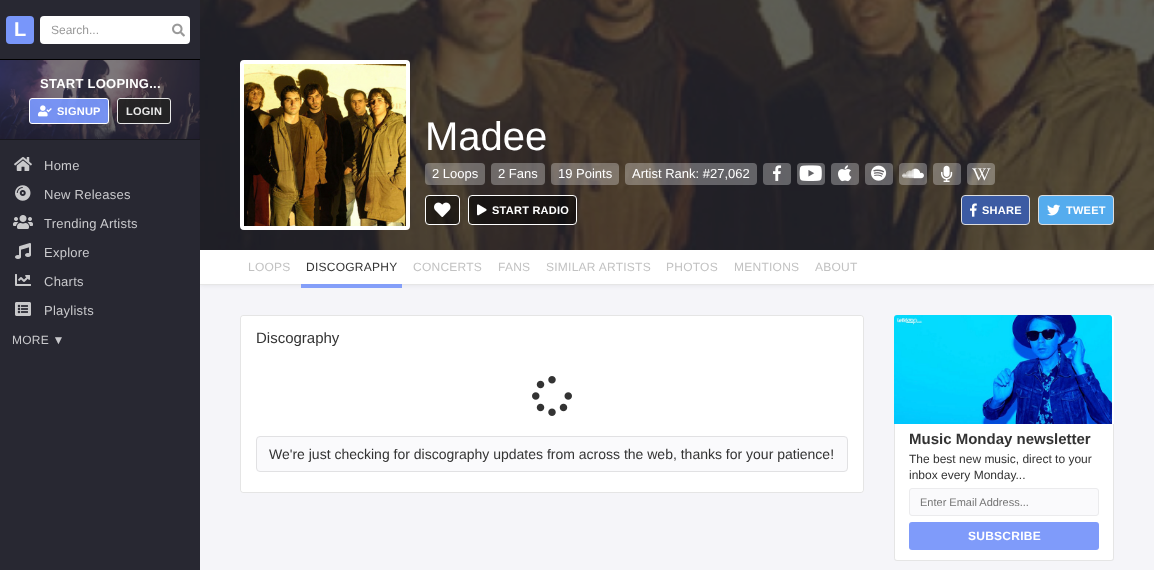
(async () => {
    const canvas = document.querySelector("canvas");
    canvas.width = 1154;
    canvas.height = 570;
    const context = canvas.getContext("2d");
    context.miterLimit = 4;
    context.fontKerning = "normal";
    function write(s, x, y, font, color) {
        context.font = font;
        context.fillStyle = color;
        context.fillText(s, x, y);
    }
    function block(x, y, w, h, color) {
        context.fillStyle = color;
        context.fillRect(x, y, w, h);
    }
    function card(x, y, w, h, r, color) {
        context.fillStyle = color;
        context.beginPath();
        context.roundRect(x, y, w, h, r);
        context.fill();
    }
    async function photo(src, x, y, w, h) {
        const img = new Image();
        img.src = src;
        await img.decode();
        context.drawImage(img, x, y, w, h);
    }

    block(0, 0, 1154, 570, "rgb(245, 245, 249)");
    block(0, 0, 200, 59, "rgb(40, 40, 50)");
    block(0, 59, 200, 1, "rgb(0, 0, 0)");
    card(6, 16, 28, 28, 4, "rgb(120, 150, 250)");
    write("L", 14, 36, "bold 20px Liberation Sans", "rgb(255, 255, 255)");
    card(40, 16, 150, 28, 4, "rgb(255, 255, 255)");
    write("Search...", 51, 34, "12px Liberation Sans", "rgb(153, 153, 153)");
    await photo("media/1.png", 172, 23, 13, 14);
    context.fillStyle = "rgba(0, 0, 0, 0.06)";
    context.filter = "blur(2px)";
    context.beginPath();
    context.rect(200, 251, 954, 35);
    context.fill();
    context.filter = "none";
    block(0, 140, 200, 430, "rgb(40, 40, 50)");
    block(0, 60, 200, 80, "rgb(24, 24, 30)");
    await photo("media/2.png", 0, 60, 200, 79);
    context.letterSpacing = "0.25px";
    write("START LOOPING...", 40, 88, "bold 13px Liberation Sans", "rgb(255, 255, 255)");
    context.fillStyle = "rgba(120, 150, 250, 0.95)";
    context.beginPath();
    context.roundRect(29.5, 98.5, 79, 25, 2.5);
    context.fill();
    context.strokeStyle = "rgb(255, 255, 255)";
    context.stroke();
    await photo("media/3.png", 38, 105, 14, 12);
    write("SIGNUP", 57, 115, "bold 11px Liberation Sans", "rgb(255, 255, 255)");
    card(117, 98, 54, 26, 3, "rgba(34, 34, 34, 0.9)");
    context.beginPath();
    context.roundRect(117.5, 98.5, 53, 25, 2.5);
    context.strokeStyle = "rgba(255, 255, 255, 0.9)";
    context.stroke();
    write("LOGIN", 126, 115, "bold 11px Liberation Sans", "rgb(233, 233, 233)");
    await photo("media/4.png", 14, 157, 18, 14);
    write("Home", 44, 170, "13px Liberation Sans", "rgb(201, 201, 204)");
    await photo("media/5.png", 15, 185, 16, 16);
    write("New Releases", 44, 199, "13px Liberation Sans", "rgb(201, 201, 204)");
    await photo("media/6.png", 13, 215, 20, 14);
    write("Trending Artists", 44, 228, "13px Liberation Sans", "rgb(201, 201, 204)");
    await photo("media/7.png", 15, 243, 16, 16);
    write("Explore", 44, 257, "13px Liberation Sans", "rgb(201, 201, 204)");
    await photo("media/8.png", 15, 274, 16, 12);
    write("Charts", 44, 286, "13px Liberation Sans", "rgb(201, 201, 204)");
    await photo("media/9.png", 15, 302, 16, 14);
    write("Playlists", 44, 315, "13px Liberation Sans", "rgb(201, 201, 204)");
    write("MORE ▼", 12, 344, "12px Liberation Sans", "rgb(201, 201, 204)");
    await photo("media/10.png", 200, 0, 954, 250);
    context.beginPath();
    context.roundRect(242, 62, 166, 166, 2);
    context.strokeStyle = "rgb(255, 255, 255)";
    context.lineWidth = 4;
    context.stroke();
    await photo("media/11.png", 244, 64, 162, 162);
    context.letterSpacing = "0px";
    write("Madee", 425, 150, "40px Liberation Sans", "rgb(255, 255, 255)");
    card(425, 163, 60, 22, 4, "rgba(255, 255, 255, 0.3)");
    write("2 Loops", 432, 178, "13px Liberation Sans", "rgb(255, 255, 255)");
    card(491, 163, 54, 22, 4, "rgba(255, 255, 255, 0.3)");
    write("2 Fans", 498, 178, "13px Liberation Sans", "rgb(255, 255, 255)");
    card(551, 163, 68, 22, 4, "rgba(255, 255, 255, 0.3)");
    write("19 Points", 558, 178, "13px Liberation Sans", "rgb(255, 255, 255)");
    card(625, 163, 132, 22, 4, "rgba(255, 255, 255, 0.3)");
    write("Artist Rank: #27,062", 632, 178, "13px Liberation Sans", "rgb(255, 255, 255)");
    card(763, 163, 28, 22, 4, "rgba(255, 255, 255, 0.3)");
    await photo("media/12.png", 773, 165, 9, 16);
    card(797, 163, 28, 22, 4, "rgb(99, 99, 103)");
    await photo("media/13.png", 799, 165, 23, 16);
    card(831, 163, 28, 22, 4, "rgba(255, 255, 255, 0.3)");
    await photo("media/14.png", 838, 165, 14, 17);
    card(865, 163, 28, 22, 4, "rgba(255, 255, 255, 0.3)");
    await photo("media/15.png", 871, 165, 16, 16);
    card(899, 163, 28, 22, 4, "rgba(255, 255, 255, 0.3)");
    await photo("media/16.png", 902, 168, 22, 11);
    card(933, 163, 28, 22, 4, "rgba(255, 255, 255, 0.3)");
    await photo("media/17.png", 941, 165, 12, 17);
    card(967, 163, 28, 22, 4, "rgba(255, 255, 255, 0.3)");
    await photo("media/18.png", 972, 168, 19, 13);
    context.fillStyle = "rgba(0, 0, 0, 0.5)";
    context.beginPath();
    context.roundRect(425.5, 195.5, 34, 29, 3.5);
    context.fill();
    context.lineWidth = 1;
    context.stroke();
    await photo("media/19.png", 434, 202, 17, 15);
    context.beginPath();
    context.roundRect(468.5, 195.5, 108, 29, 3.5);
    context.fill();
    context.stroke();
    await photo("media/20.png", 477, 204, 10, 12);
    context.letterSpacing = "0.25px";
    write("START RADIO", 492, 214, "bold 11px Liberation Sans", "rgb(255, 255, 255)");
    context.fillStyle = "rgb(60, 91, 163)";
    context.beginPath();
    context.roundRect(961.5, 195.5, 68, 29, 3.5);
    context.fill();
    context.strokeStyle = "rgb(221, 221, 221)";
    context.stroke();
    await photo("media/21.png", 970, 203, 7, 14);
    write("SHARE", 982, 214, "bold 11px Liberation Sans", "rgb(255, 255, 255)");
    context.fillStyle = "rgb(85, 172, 238)";
    context.beginPath();
    context.roundRect(1038.5, 195.5, 75, 29, 3.5);
    context.fill();
    context.stroke();
    await photo("media/22.png", 1047, 204, 13, 12);
    write("TWEET", 1066, 214, "bold 11px Liberation Sans", "rgb(255, 255, 255)");
    block(200, 250, 954, 34, "rgb(255, 255, 255)");
    block(200, 284, 954, 1, "rgb(230, 230, 230)");
    write("LOOPS", 248, 271, "12px Liberation Sans", "rgb(194, 194, 194)");
    block(301, 284, 101, 4, "rgba(120, 150, 250, 0.9)");
    write("DISCOGRAPHY", 306, 271, "12px Liberation Sans", "rgb(51, 51, 51)");
    write("CONCERTS", 413, 271, "12px Liberation Sans", "rgb(194, 194, 194)");
    write("FANS", 498, 271, "12px Liberation Sans", "rgb(194, 194, 194)");
    write("SIMILAR ARTISTS", 546, 271, "12px Liberation Sans", "rgb(194, 194, 194)");
    write("PHOTOS", 666, 271, "12px Liberation Sans", "rgb(194, 194, 194)");
    write("MENTIONS", 734, 271, "12px Liberation Sans", "rgb(194, 194, 194)");
    write("ABOUT", 815, 271, "12px Liberation Sans", "rgb(194, 194, 194)");
    card(240, 315, 624, 178, 3, "rgb(255, 255, 255)");
    context.beginPath();
    context.roundRect(240.5, 315.5, 623, 177, 2.5);
    context.strokeStyle = "rgba(0, 0, 0, 0.1)";
    context.stroke();
    context.letterSpacing = "0px";
    write("Discography", 256, 343, "15px Liberation Sans", "rgb(51, 51, 51)");
    await photo("media/23.png", 532, 376, 40, 40);
    context.fillStyle = "rgb(250, 250, 252)";
    context.beginPath();
    context.roundRect(256.5, 436.5, 591, 35, 3.5);
    context.fill();
    context.strokeStyle = "rgb(225, 225, 227)";
    context.stroke();
    write("We're just checking for discography updates from across the web, thanks for your patience!", 269, 459, "14px Liberation Sans", "rgb(51, 51, 51)");
    card(894, 315, 220, 246, 3, "rgb(255, 255, 255)");
    await photo("media/24.png", 894, 315, 218, 109);
    context.fillStyle = "rgba(0, 0, 0, 0.1)";
    context.beginPath();
    context.moveTo(894, 424);
    context.lineTo(1114, 424);
    context.lineTo(1114, 558);
    context.bezierCurveTo(1114, 560, 1113, 561, 1111, 561);
    context.lineTo(897, 561);
    context.bezierCurveTo(895, 561, 894, 560, 894, 558);
    context.closePath();
    context.moveTo(895, 424);
    context.lineTo(1113, 424);
    context.lineTo(1113, 558);
    context.bezierCurveTo(1113, 559, 1112, 560, 1111, 560);
    context.lineTo(897, 560);
    context.bezierCurveTo(896, 560, 895, 559, 895, 558);
    context.closePath();
    context.fill("evenodd");
    write("Music Monday newsletter", 909, 444, "bold 15px Liberation Sans", "rgb(51, 51, 51)");
    write("The best new music, direct to your", 909, 463, "12px Liberation Sans", "rgb(51, 51, 51)");
    write("inbox every Monday...", 909, 479, "12px Liberation Sans", "rgb(51, 51, 51)");
    context.fillStyle = "rgb(250, 250, 252)";
    context.beginPath();
    context.roundRect(909.5, 488.5, 189, 27, 2.5);
    context.fill();
    context.strokeStyle = "rgb(235, 235, 237)";
    context.stroke();
    write("Enter Email Address...", 920, 506, "11px Liberation Sans", "rgb(117, 117, 117)");
    card(909, 522, 190, 28, 3, "rgb(127, 155, 250)");
    context.letterSpacing = "0.25px";
    write("SUBSCRIBE", 968, 540, "bold 12px Liberation Sans", "rgb(255, 255, 255)");
})();
